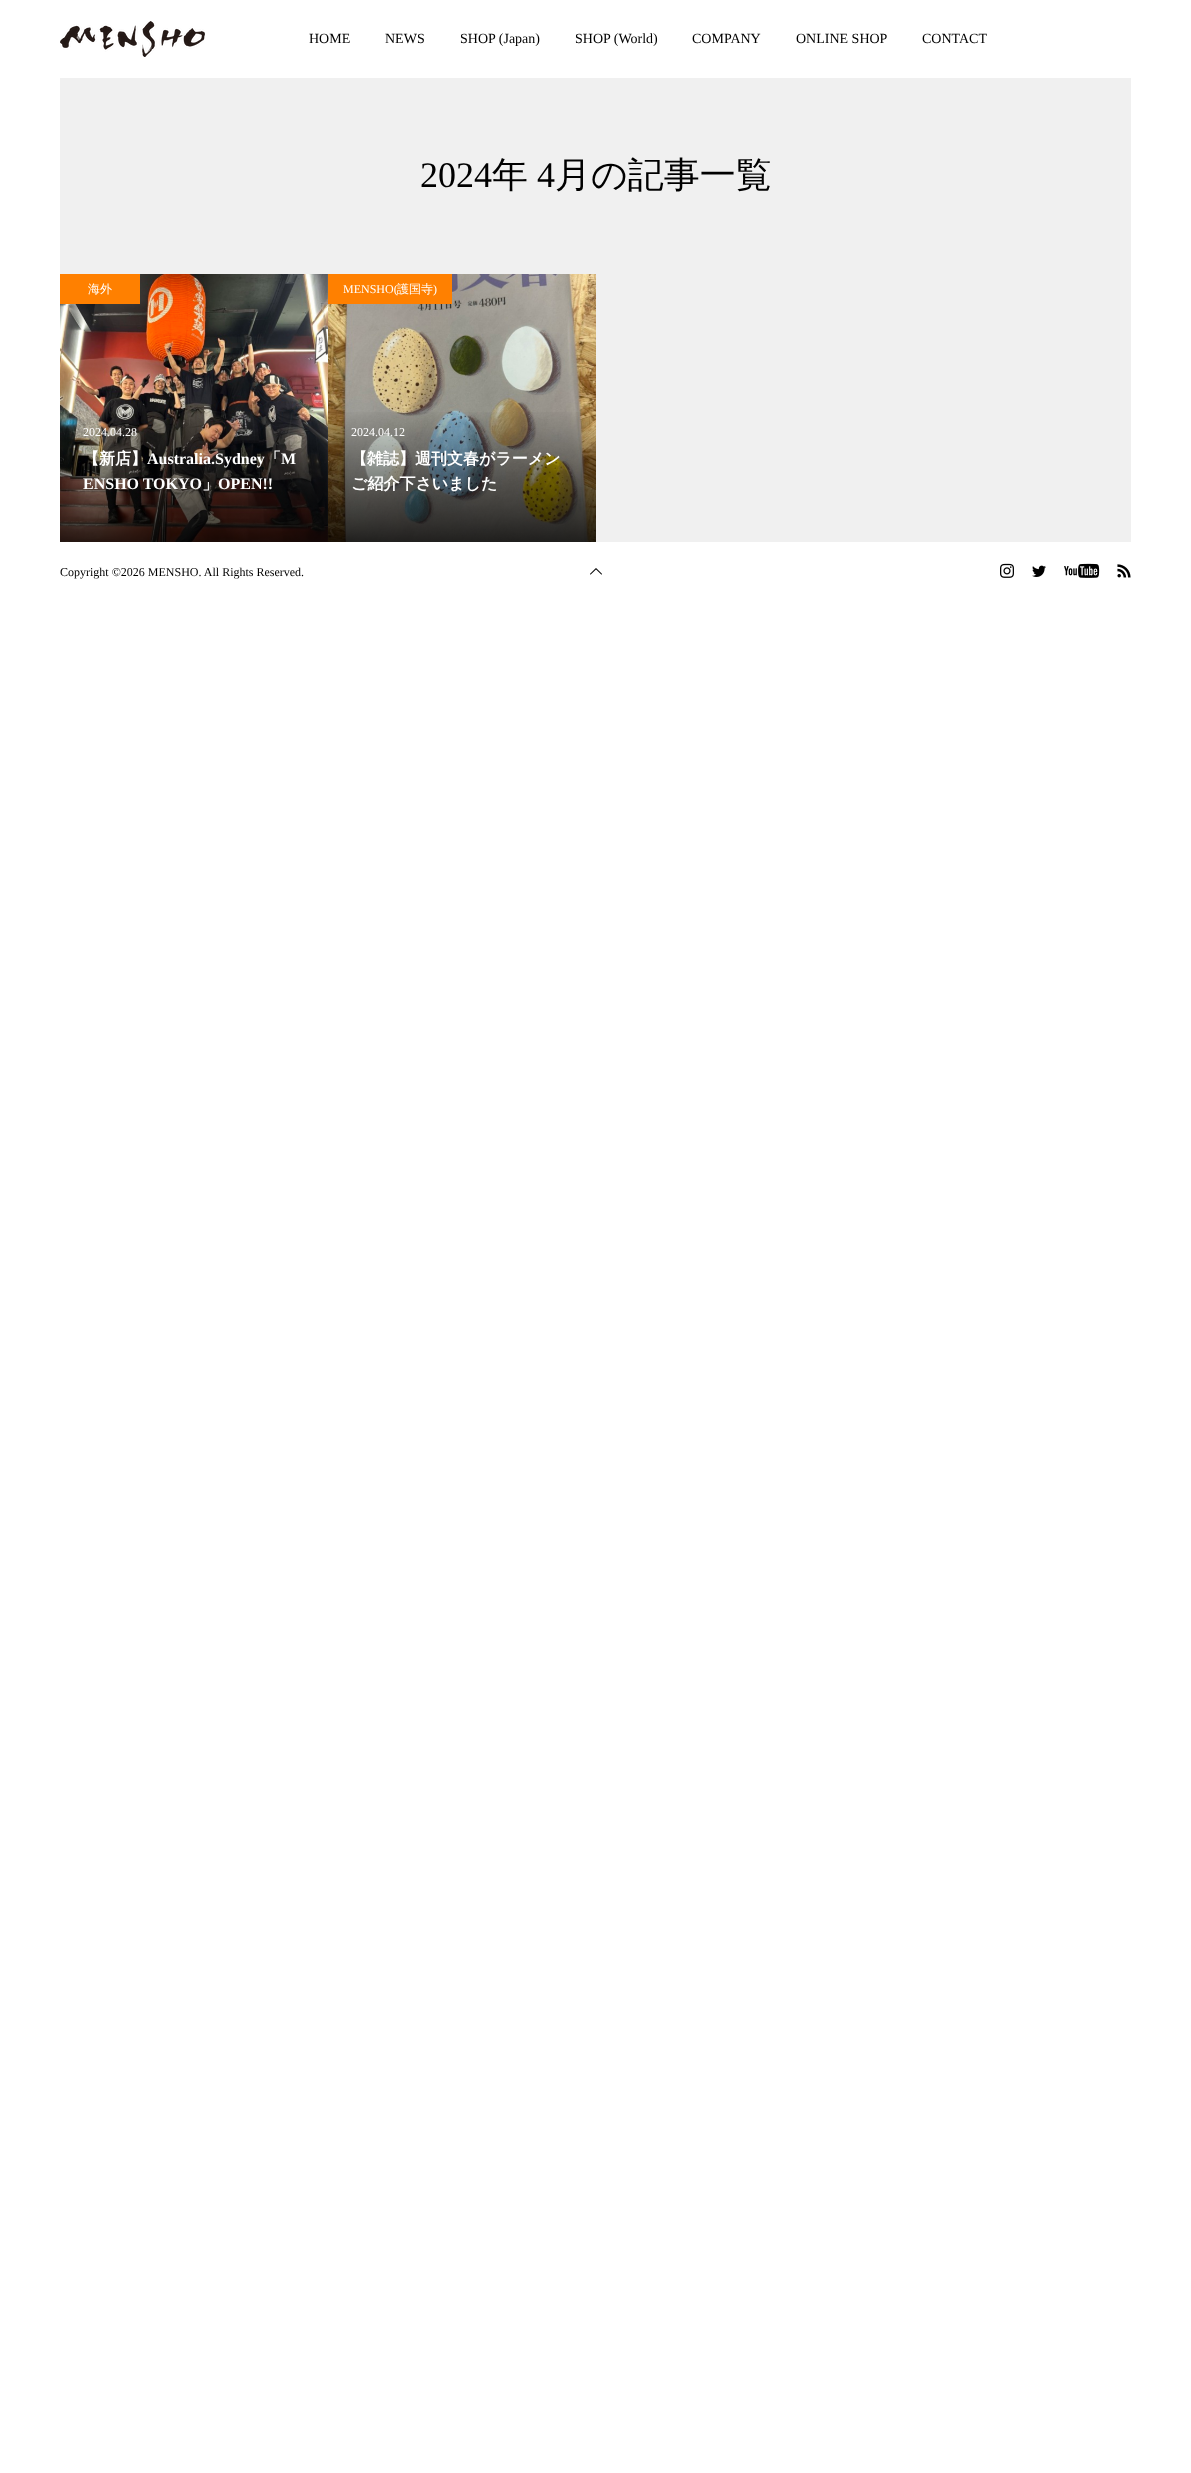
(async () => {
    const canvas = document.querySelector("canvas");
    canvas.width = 1191;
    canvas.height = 2473;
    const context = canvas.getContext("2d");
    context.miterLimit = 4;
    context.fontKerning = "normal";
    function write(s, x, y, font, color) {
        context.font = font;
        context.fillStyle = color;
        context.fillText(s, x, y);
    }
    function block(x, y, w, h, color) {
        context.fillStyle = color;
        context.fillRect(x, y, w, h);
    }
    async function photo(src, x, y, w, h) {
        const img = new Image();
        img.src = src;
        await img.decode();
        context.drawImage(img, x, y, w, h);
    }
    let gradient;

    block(0, 0, 1191, 2473, "rgb(255, 255, 255)");
    await photo("media/1.png", 60, 21, 145, 36);
    write("HOME", 309, 43, "14px Liberation Serif", "rgb(0, 0, 0)");
    write("NEWS", 385, 43, "14px Liberation Serif", "rgb(0, 0, 0)");
    write("SHOP (Japan)", 460, 43, "14px Liberation Serif", "rgb(0, 0, 0)");
    write("SHOP (World)", 575, 43, "14px Liberation Serif", "rgb(0, 0, 0)");
    write("COMPANY", 692, 43, "14px Liberation Serif", "rgb(0, 0, 0)");
    write("ONLINE SHOP", 796, 43, "14px Liberation Serif", "rgb(0, 0, 0)");
    write("CONTACT", 922, 43, "14px Liberation Serif", "rgb(0, 0, 0)");
    block(60, 78, 1071, 464, "rgb(240, 240, 240)");
    write("2024", 420, 187, "36px Liberation Serif", "rgb(0, 0, 0)");
    write("年", 492, 187, "500 36px WenQuanYi Zen Hei", "rgb(0, 0, 0)");
    write("4", 537, 187, "36px Liberation Serif", "rgb(0, 0, 0)");
    write("月の記事一覧", 555, 187, "500 36px WenQuanYi Zen Hei", "rgb(0, 0, 0)");
    await photo("media/2.png", 60, 274, 268, 268);
    block(60, 274, 80, 30, "rgb(255, 128, 0)");
    write("海外", 88, 293, "500 12px WenQuanYi Zen Hei", "rgb(255, 255, 255)");
    gradient = context.createLinearGradient(195, 408, 195, 542);
    gradient.addColorStop(0, "rgba(0, 0, 0, 0)");
    gradient.addColorStop(1, "rgba(0, 0, 0, 0.8)");
    context.fillStyle = gradient;
    context.fillRect(60, 412, 268, 130);
    write("2024.04.28", 83, 436, "12px Liberation Serif", "rgb(255, 255, 255)");
    write("【新店】", 83, 464, "bold 16px WenQuanYi Zen Hei", "rgb(255, 255, 255)");
    write("Australia.Sydney", 147, 464, "bold 16px Liberation Serif", "rgb(255, 255, 255)");
    write("「", 265, 464, "bold 16px WenQuanYi Zen Hei", "rgb(255, 255, 255)");
    write("M", 281, 464, "bold 16px Liberation Serif", "rgb(255, 255, 255)");
    write("ENSHO TOKYO", 83, 489, "bold 16px Liberation Serif", "rgb(255, 255, 255)");
    write("」", 202, 489, "bold 16px WenQuanYi Zen Hei", "rgb(255, 255, 255)");
    write("OPEN!!", 218, 489, "bold 16px Liberation Serif", "rgb(255, 255, 255)");
    await photo("media/3.png", 328, 274, 268, 268);
    block(328, 274, 124, 30, "rgb(255, 128, 0)");
    write("MENSHO(", 343, 293, "12px Liberation Serif", "rgb(255, 255, 255)");
    write("護国寺", 397, 293, "500 12px WenQuanYi Zen Hei", "rgb(255, 255, 255)");
    write(")", 433, 293, "12px Liberation Serif", "rgb(255, 255, 255)");
    gradient = context.createLinearGradient(463, 408, 463, 542);
    gradient.addColorStop(0, "rgba(0, 0, 0, 0)");
    gradient.addColorStop(1, "rgba(0, 0, 0, 0.8)");
    context.fillStyle = gradient;
    context.fillRect(328, 412, 268, 130);
    write("2024.04.12", 351, 436, "12px Liberation Serif", "rgb(255, 255, 255)");
    write("【雑誌】週刊文春がラーメン", 351, 464, "bold 16px WenQuanYi Zen Hei", "rgb(255, 255, 255)");
    write("ご紹介下さいました", 351, 489, "bold 16px WenQuanYi Zen Hei", "rgb(255, 255, 255)");
    write("Copyright ©2026 MENSHO. All Rights Reserved.", 60, 576, "12px Liberation Serif", "rgb(0, 0, 0)");
    await photo("media/4.png", 590, 568, 12, 7);
    await photo("media/5.png", 1000, 563, 14, 15);
    await photo("media/6.png", 1032, 565, 14, 12);
    await photo("media/7.png", 1064, 563, 36, 15);
    await photo("media/8.png", 1117, 564, 14, 14);
})();
